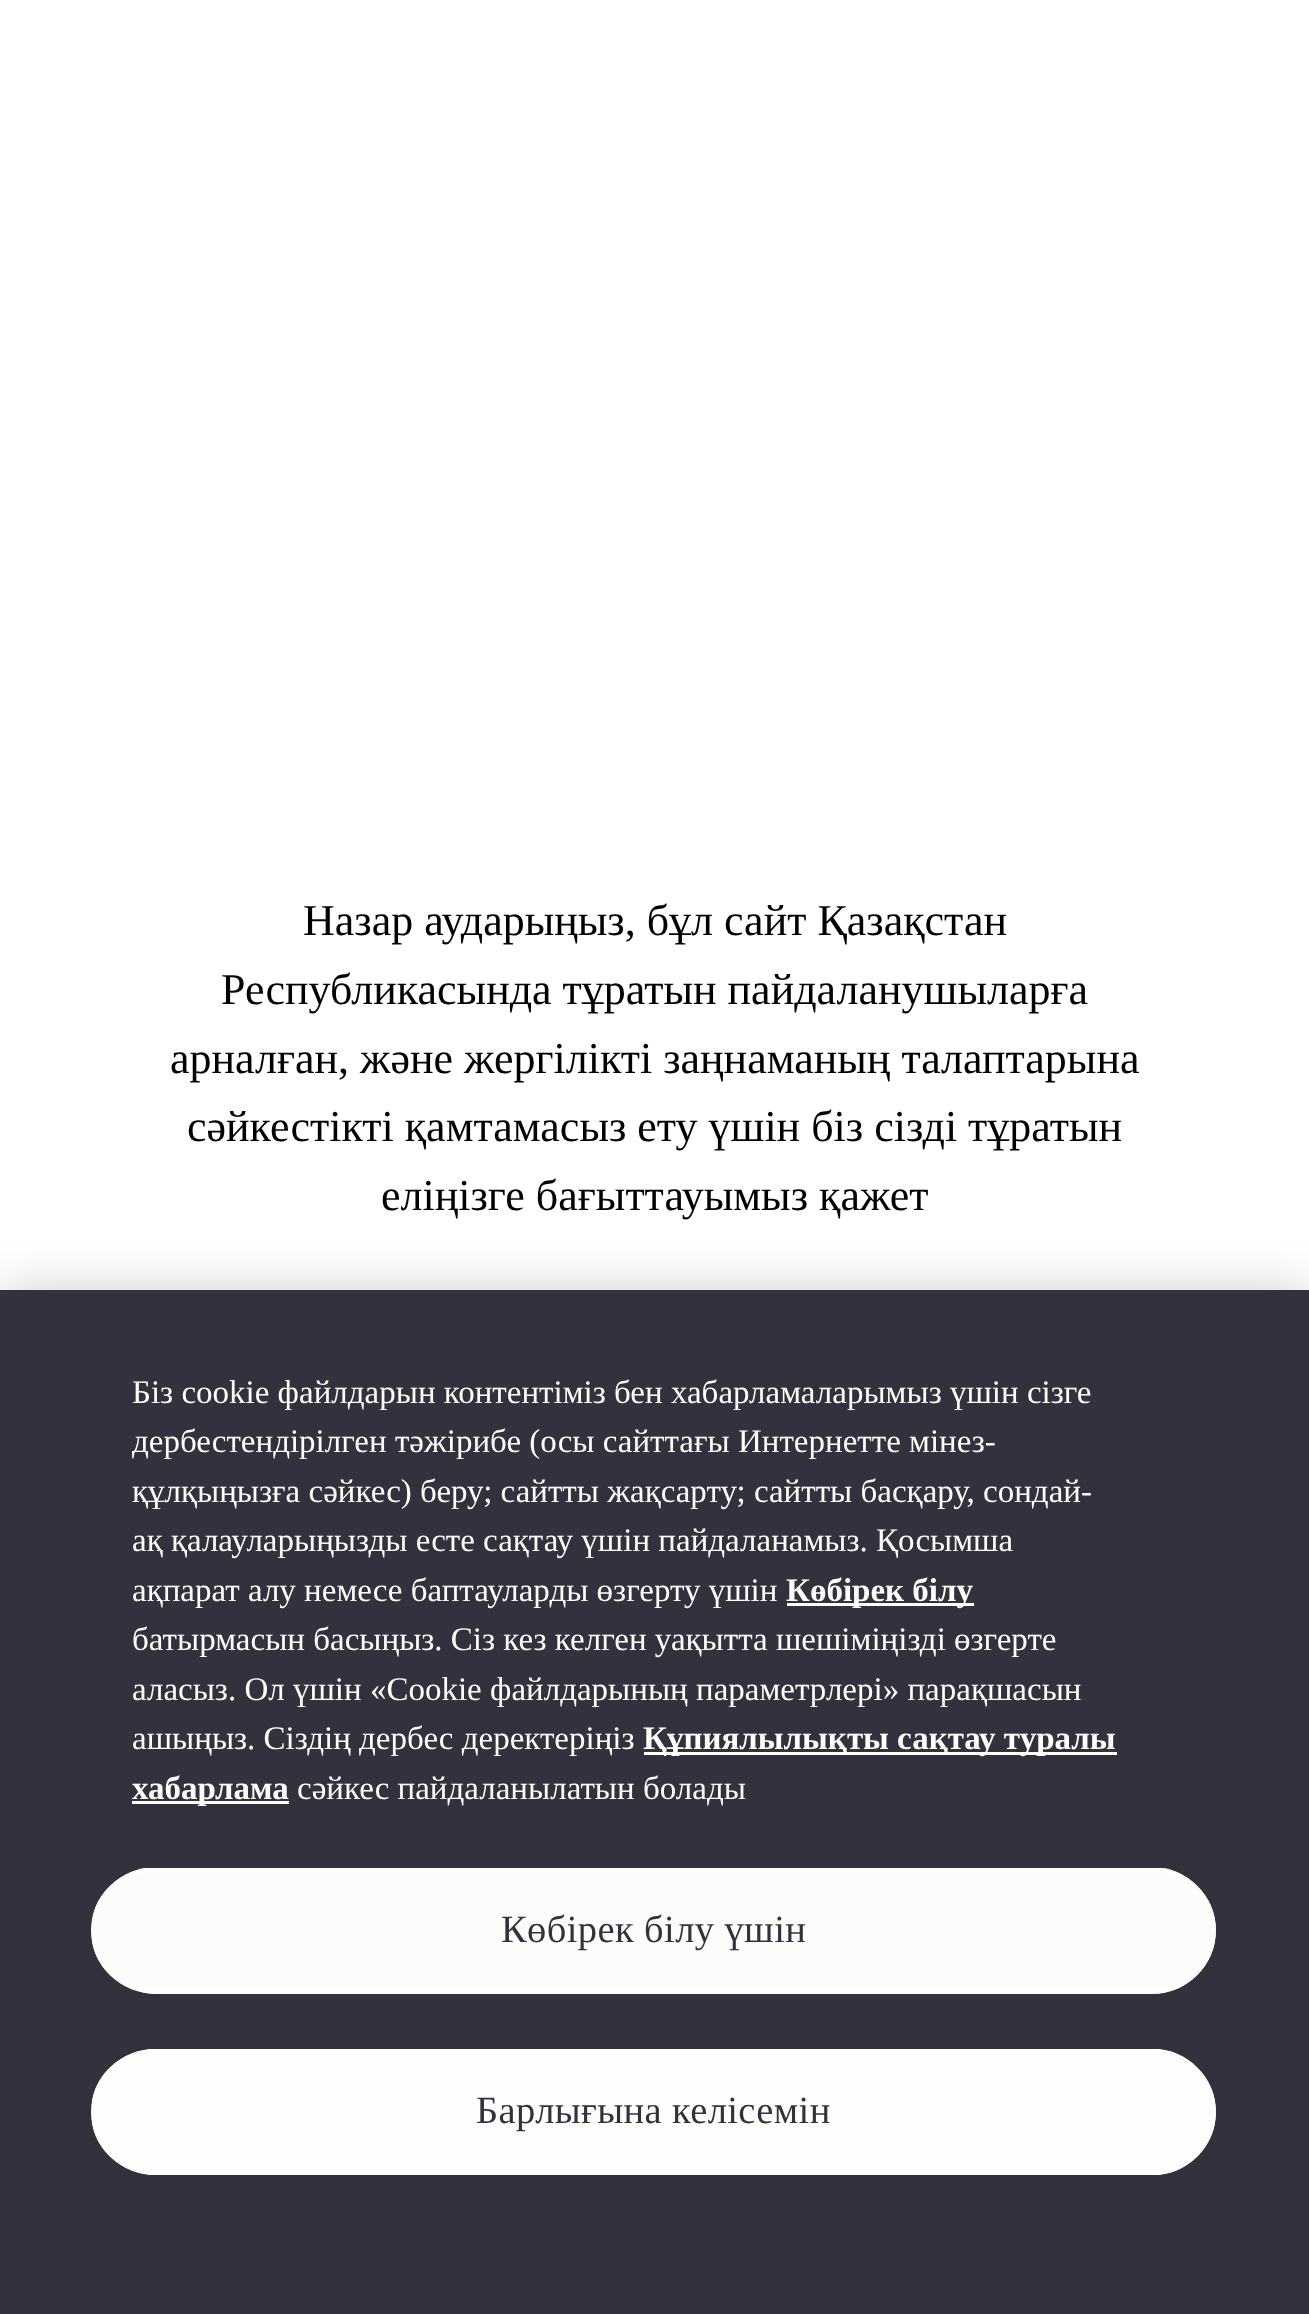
(async () => {
    const canvas = document.querySelector("canvas");
    canvas.width = 1309;
    canvas.height = 2314;
    const context = canvas.getContext("2d");
    context.miterLimit = 4;
    context.fontKerning = "normal";
    function write(s, x, y, font, color) {
        context.font = font;
        context.fillStyle = color;
        context.fillText(s, x, y);
    }
    function block(x, y, w, h, color) {
        context.fillStyle = color;
        context.fillRect(x, y, w, h);
    }

    block(0, 0, 1309, 2314, "rgb(255, 255, 255)");
    write("Назар аударыңыз, бұл сайт Қазақстан", 303, 935, "44px Liberation Serif", "rgb(0, 0, 0)");
    write("Республикасында тұратын пайдаланушыларға", 221, 1004, "44px Liberation Serif", "rgb(0, 0, 0)");
    write("арналған, және жергілікті заңнаманың талаптарына", 170, 1073, "44px Liberation Serif", "rgb(0, 0, 0)");
    write("сәйкестікті қамтамасыз ету үшін біз сізді тұратын", 187, 1141, "44px Liberation Serif", "rgb(0, 0, 0)");
    write("еліңізге бағыттауымыз қажет", 381, 1210, "44px Liberation Serif", "rgb(0, 0, 0)");
    context.fillStyle = "rgba(0, 0, 0, 0.2)";
    context.filter = "blur(25px)";
    context.beginPath();
    context.rect(0, 1290, 1309, 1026);
    context.fill();
    context.filter = "none";
    block(0, 1290, 1309, 1024, "rgb(52, 48, 61)");
    write("Біз cookie файлдарын контентіміз бен хабарламаларымыз үшін сізге", 132, 1403, "33px Liberation Serif", "rgb(255, 253, 251)");
    write("дербестендірілген тәжірибе (осы сайттағы Интернетте мінез-", 132, 1452, "33px Liberation Serif", "rgb(255, 253, 251)");
    write("құлқыңызға сәйкес) беру; сайтты жақсарту; сайтты басқару, сондай-", 132, 1502, "33px Liberation Serif", "rgb(255, 253, 251)");
    write("ақ қалауларыңызды есте сақтау үшін пайдаланамыз. Қосымша", 132, 1551, "33px Liberation Serif", "rgb(255, 253, 251)");
    write("ақпарат алу немесе баптауларды өзгерту үшін", 132, 1601, "33px Liberation Serif", "rgb(255, 253, 251)");
    block(787, 1603, 187, 3, "rgb(255, 255, 255)");
    write("Көбірек білу", 786, 1601, "bold 33px Liberation Serif", "rgb(255, 253, 251)");
    write("батырмасын басыңыз. Сіз кез келген уақытта шешіміңізді өзгерте", 132, 1650, "33px Liberation Serif", "rgb(255, 253, 251)");
    write("аласыз. Ол үшін «Cookie файлдарының параметрлері» парақшасын", 132, 1700, "33px Liberation Serif", "rgb(255, 253, 251)");
    write("ашыңыз. Сіздің дербес деректеріңіз", 132, 1749, "33px Liberation Serif", "rgb(255, 253, 251)");
    block(644, 1752, 473, 3, "rgb(255, 255, 255)");
    write("Құпиялылықты сақтау туралы", 643, 1749, "bold 33px Liberation Serif", "rgb(255, 253, 251)");
    block(132, 1801, 157, 3, "rgb(255, 255, 255)");
    write("хабарлама", 132, 1799, "bold 33px Liberation Serif", "rgb(255, 253, 251)");
    write("сәйкес пайдаланылатын болады", 297, 1799, "33px Liberation Serif", "rgb(255, 253, 251)");
    context.fillStyle = "rgb(254, 252, 250)";
    context.beginPath();
    context.moveTo(157, 1867);
    context.lineTo(1152, 1867);
    context.bezierCurveTo(1187, 1867, 1216, 1896, 1216, 1930);
    context.bezierCurveTo(1216, 1965, 1187, 1994, 1152, 1994);
    context.lineTo(157, 1994);
    context.bezierCurveTo(120, 1994, 91, 1965, 91, 1930);
    context.bezierCurveTo(91, 1896, 120, 1867, 157, 1867);
    context.closePath();
    context.fill();
    context.beginPath();
    context.moveTo(157, 1870);
    context.lineTo(1152, 1870);
    context.bezierCurveTo(1185.5, 1870, 1213, 1897, 1213, 1930.5);
    context.bezierCurveTo(1213, 1964, 1185.5, 1991, 1152, 1991);
    context.lineTo(157, 1991);
    context.bezierCurveTo(122, 1991, 93.5, 1964, 93.5, 1930.5);
    context.bezierCurveTo(93.5, 1897, 122, 1870, 157, 1870);
    context.closePath();
    context.strokeStyle = "rgb(255, 253, 251)";
    context.lineWidth = 5.5;
    context.stroke();
    context.beginPath();
    context.roundRect(89.5, 1863.5, 1130, 134, 67);
    context.strokeStyle = "rgb(52, 48, 60)";
    context.lineWidth = 3;
    context.stroke();
    block(145, 1867, 1018, 1, "rgb(52, 48, 60)");
    context.letterSpacing = "0.4px";
    write("Көбірек білу үшін", 501, 1942, "38.5px Liberation Serif", "rgb(52, 48, 61)");
    context.fillStyle = "rgb(255, 253, 251)";
    context.beginPath();
    context.moveTo(157, 2049);
    context.lineTo(1152, 2049);
    context.bezierCurveTo(1187, 2049, 1216, 2077, 1216, 2112);
    context.bezierCurveTo(1216, 2147, 1187, 2175, 1152, 2175);
    context.lineTo(157, 2175);
    context.bezierCurveTo(120, 2175, 91, 2147, 91, 2112);
    context.bezierCurveTo(91, 2077, 120, 2049, 157, 2049);
    context.closePath();
    context.fill();
    context.beginPath();
    context.moveTo(157, 2051.5);
    context.lineTo(1152, 2051.5);
    context.bezierCurveTo(1185.5, 2051.5, 1213, 2078.5, 1213, 2112);
    context.bezierCurveTo(1213, 2145.5, 1185.5, 2172.5, 1152, 2172.5);
    context.lineTo(157, 2172.5);
    context.bezierCurveTo(122, 2172.5, 93.5, 2145.5, 93.5, 2112);
    context.bezierCurveTo(93.5, 2078.5, 122, 2051.5, 157, 2051.5);
    context.closePath();
    context.strokeStyle = "rgb(255, 253, 251)";
    context.lineWidth = 5.5;
    context.stroke();
    context.beginPath();
    context.roundRect(89.5, 2044.5, 1130, 135, 67.5);
    context.strokeStyle = "rgb(52, 48, 60)";
    context.lineWidth = 3;
    context.stroke();
    block(151, 2048, 1006, 1, "rgb(52, 48, 60)");
    block(151, 2175, 1006, 1, "rgb(52, 48, 60)");
    write("Барлығына келісемін", 476, 2123, "38.5px Liberation Serif", "rgb(52, 48, 61)");
})();
